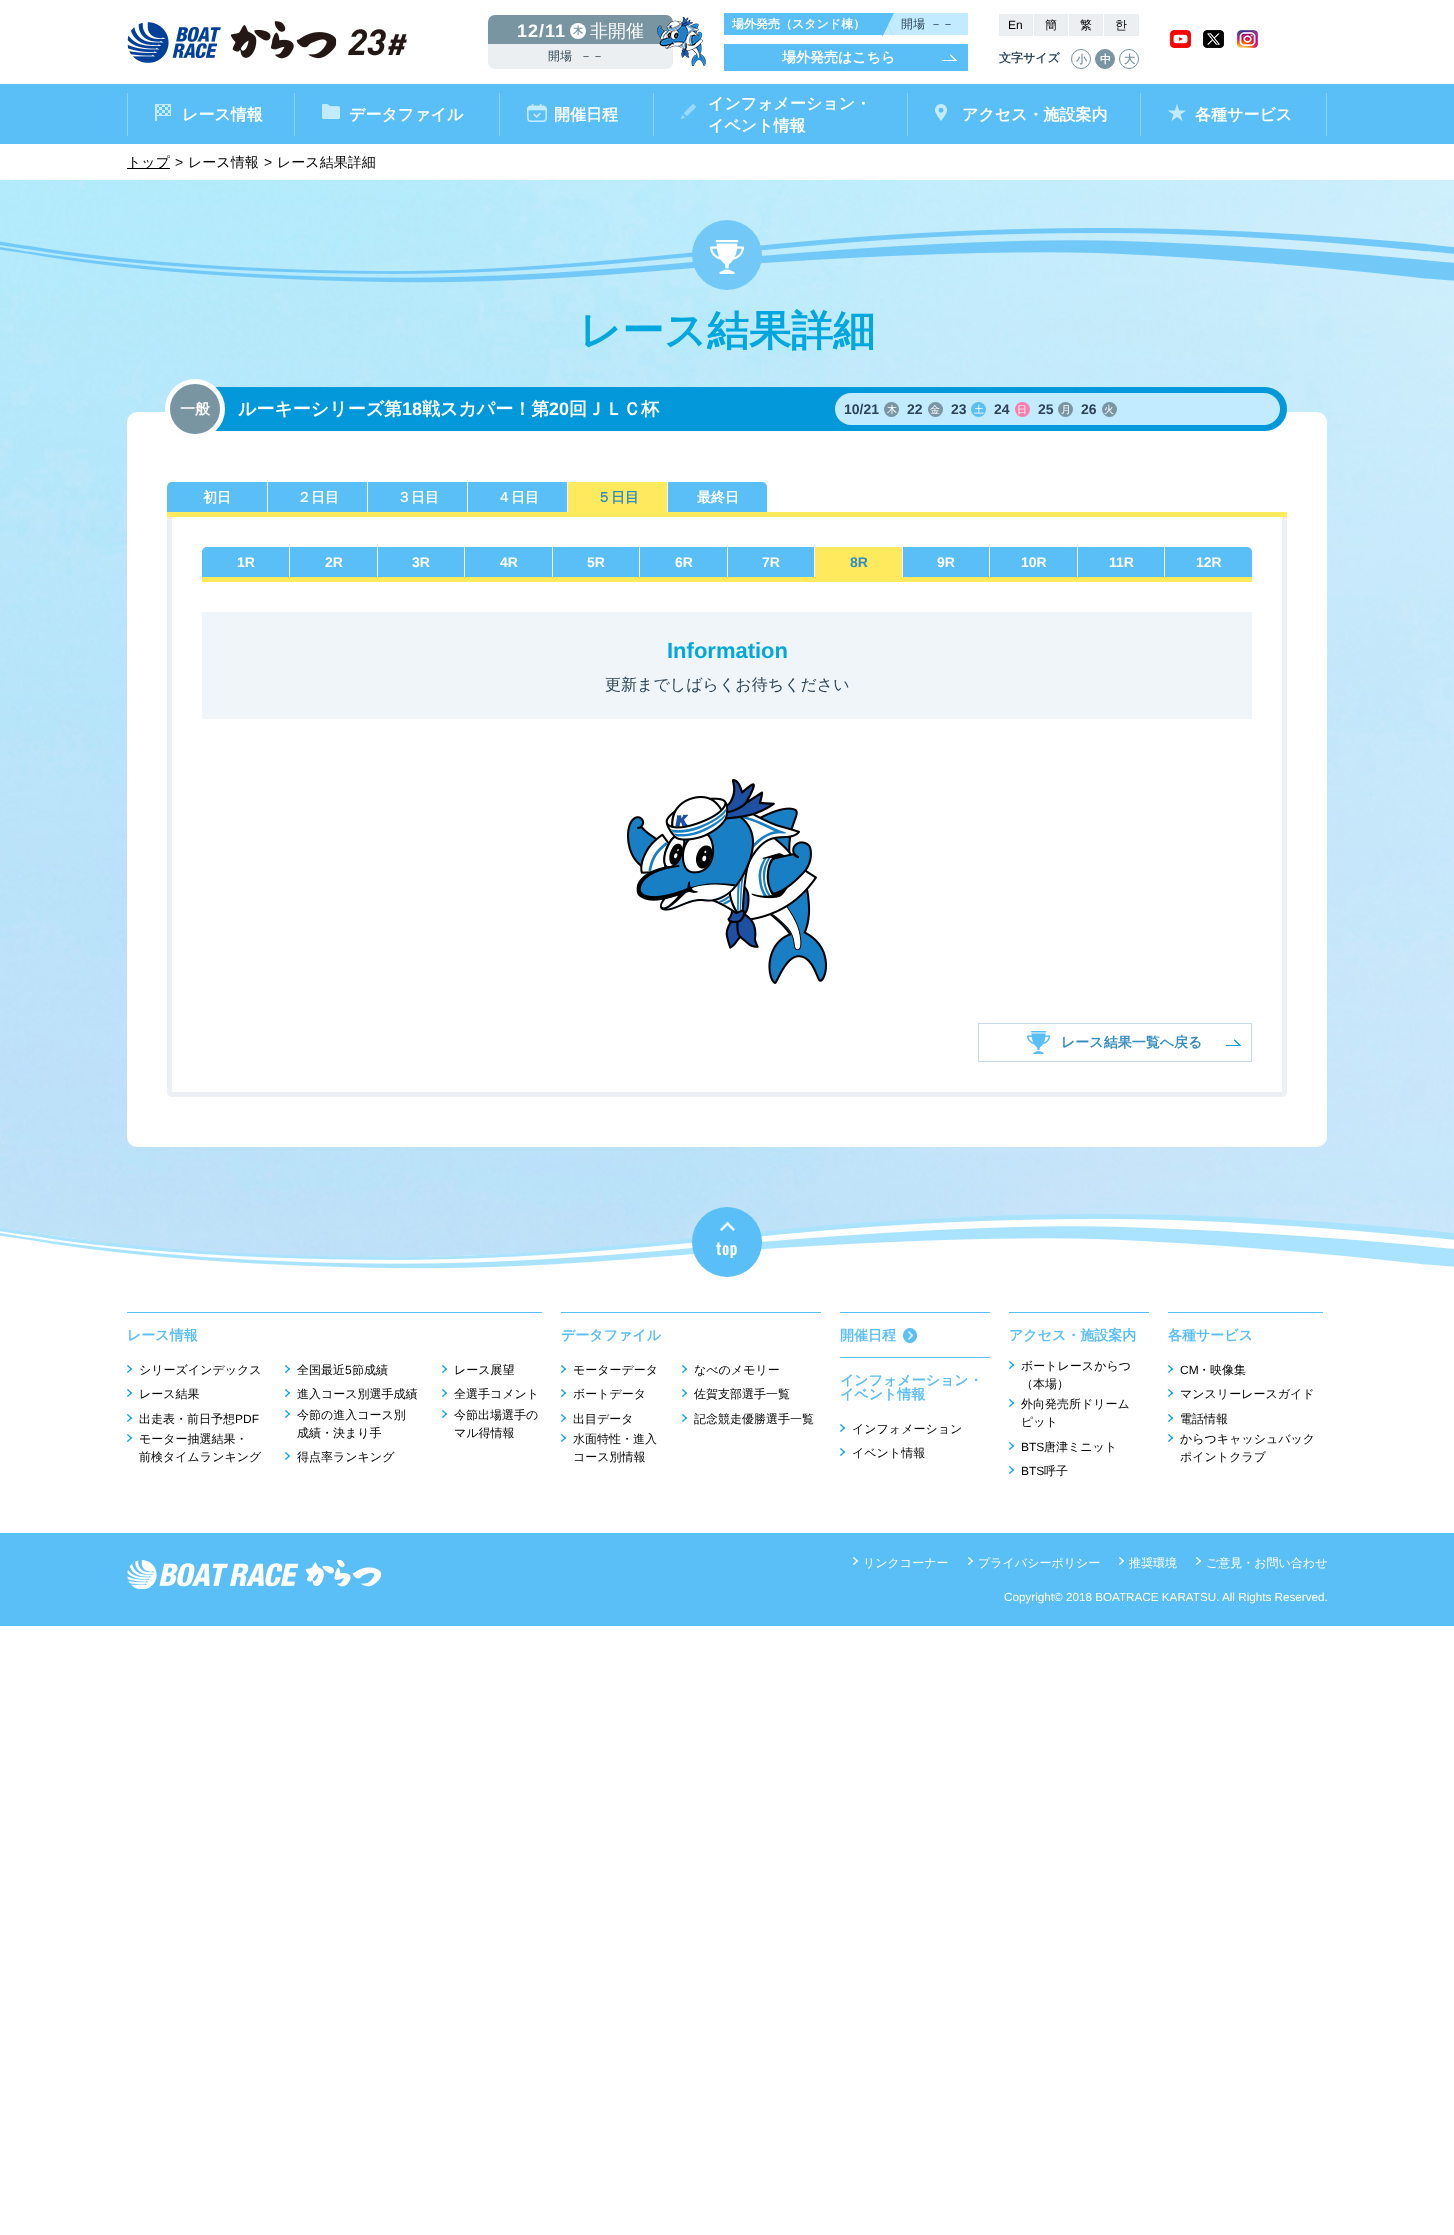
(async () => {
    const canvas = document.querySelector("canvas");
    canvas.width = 1454;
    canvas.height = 2235;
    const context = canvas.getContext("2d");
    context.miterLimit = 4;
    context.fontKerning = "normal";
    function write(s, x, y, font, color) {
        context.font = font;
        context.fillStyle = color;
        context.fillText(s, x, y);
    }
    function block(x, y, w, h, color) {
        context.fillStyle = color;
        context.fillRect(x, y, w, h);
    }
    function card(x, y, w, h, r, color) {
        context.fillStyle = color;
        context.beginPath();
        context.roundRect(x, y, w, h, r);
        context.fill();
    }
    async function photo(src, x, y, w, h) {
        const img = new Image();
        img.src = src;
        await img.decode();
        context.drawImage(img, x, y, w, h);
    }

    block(0, 0, 1454, 2235, "rgb(255, 255, 255)");
    await photo("media/1.png", 127, 21, 280, 42);
    context.fillStyle = "rgb(121, 149, 162)";
    context.beginPath();
    context.roundRect(488, 15, 185, 29, [7, 7, 0, 0]);
    context.fill();
    context.letterSpacing = "1px";
    write("12/11", 517, 37, "bold 18px Liberation Sans", "rgb(255, 255, 255)");
    context.beginPath();
    context.arc(578, 31, 8, 0, Math.PI * 2);
    context.fill();
    context.letterSpacing = "0px";
    write("木", 573, 34, "bold 10px WenQuanYi Zen Hei", "rgb(121, 149, 162)");
    write("非開催", 590, 37, "500 18px WenQuanYi Zen Hei", "rgb(255, 255, 255)");
    context.fillStyle = "rgb(236, 239, 241)";
    context.beginPath();
    context.roundRect(488, 44, 185, 25, [0, 0, 7, 7]);
    context.fill();
    await photo("media/2.png", 657, 17, 49, 49);
    write("開場", 548, 60, "500 12px WenQuanYi Zen Hei", "rgb(44, 68, 85)");
    write("－－", 580, 60, "500 12px WenQuanYi Zen Hei", "rgb(44, 68, 85)");
    block(724, 13, 170, 22, "rgb(90, 190, 247)");
    write("場外発売（スタンド棟）", 732, 28, "bold 12px WenQuanYi Zen Hei", "rgb(255, 255, 255)");
    context.fillStyle = "rgb(195, 235, 255)";
    context.beginPath();
    context.moveTo(894, 13);
    context.lineTo(894, 37);
    context.lineTo(888, 25);
    context.closePath();
    context.fill();
    context.save();
    context.beginPath();
    context.rect(724, 13, 170, 22);
    context.clip();
    context.beginPath();
    context.moveTo(894, 37);
    context.lineTo(882, 37);
    context.lineTo(888, 25);
    context.closePath();
    context.fill();
    context.restore();
    context.fillStyle = "rgb(90, 190, 247)";
    context.beginPath();
    context.moveTo(882, 37);
    context.lineTo(882, 13);
    context.lineTo(888, 25);
    context.closePath();
    context.fill();
    block(894, 13, 74, 22, "rgb(195, 235, 255)");
    write("開場", 901, 28, "500 12px WenQuanYi Zen Hei", "rgb(44, 68, 85)");
    write("－－", 930, 28, "500 12px WenQuanYi Zen Hei", "rgb(44, 68, 85)");
    block(724, 44, 244, 27, "rgb(90, 190, 247)");
    await photo("media/3.png", 942, 54, 15, 7);
    write("場外発売はこちら", 782, 62, "bold 14px WenQuanYi Zen Hei", "rgb(255, 255, 255)");
    block(999, 14, 34, 22, "rgb(236, 239, 241)");
    write("En", 1008, 29, "12px Liberation Sans", "rgb(0, 0, 0)");
    block(1034, 14, 34, 22, "rgb(236, 239, 241)");
    write("簡", 1045, 29, "500 12px WenQuanYi Zen Hei", "rgb(0, 0, 0)");
    block(1069, 14, 34, 22, "rgb(236, 239, 241)");
    write("繁", 1080, 29, "500 12px WenQuanYi Zen Hei", "rgb(0, 0, 0)");
    block(1104, 14, 35, 22, "rgb(236, 239, 241)");
    write("한", 1115, 29, "500 12px WenQuanYi Zen Hei", "rgb(0, 0, 0)");
    write("文字サイズ", 999, 62, "bold 12px WenQuanYi Zen Hei", "rgb(44, 68, 85)");
    context.beginPath();
    context.arc(1081, 59, 9.5, 0, Math.PI * 2);
    context.strokeStyle = "rgb(121, 149, 162)";
    context.stroke();
    write("小", 1076, 63, "bold 11px WenQuanYi Zen Hei", "rgb(121, 149, 162)");
    context.beginPath();
    context.arc(1105, 59, 9.5, 0, Math.PI * 2);
    context.fill();
    context.stroke();
    write("中", 1100, 63, "bold 11px WenQuanYi Zen Hei", "rgb(255, 255, 255)");
    context.beginPath();
    context.arc(1129, 59, 9.5, 0, Math.PI * 2);
    context.stroke();
    write("大", 1124, 63, "bold 11px WenQuanYi Zen Hei", "rgb(121, 149, 162)");
    await photo("media/4.png", 1170, 30, 21, 18);
    await photo("media/5.png", 1203, 30, 21, 18);
    await photo("media/6.png", 1237, 30, 21, 18);
    block(0, 84, 1454, 60, "rgb(90, 190, 247)");
    await photo("media/7.png", 155, 104, 16, 17);
    block(127, 93, 1, 43, "rgb(140, 210, 249)");
    write("レース情報", 182, 120, "bold 16px WenQuanYi Zen Hei", "rgb(255, 255, 255)");
    await photo("media/8.png", 322, 104, 18, 15);
    block(294, 93, 1, 43, "rgb(140, 210, 249)");
    write("データファイル", 349, 120, "bold 16px WenQuanYi Zen Hei", "rgb(255, 255, 255)");
    await photo("media/9.png", 527, 104, 20, 18);
    block(499, 93, 1, 43, "rgb(140, 210, 249)");
    write("開催日程", 554, 120, "bold 16px WenQuanYi Zen Hei", "rgb(255, 255, 255)");
    await photo("media/10.png", 681, 104, 15, 15);
    block(653, 93, 1, 43, "rgb(140, 210, 249)");
    write("インフォメーション・", 708, 109, "bold 16px WenQuanYi Zen Hei", "rgb(255, 255, 255)");
    write("イベント情報", 708, 131, "bold 16px WenQuanYi Zen Hei", "rgb(255, 255, 255)");
    await photo("media/11.png", 935, 104, 12, 17);
    block(907, 93, 1, 43, "rgb(140, 210, 249)");
    write("アクセス・施設案内", 962, 120, "bold 16px WenQuanYi Zen Hei", "rgb(255, 255, 255)");
    await photo("media/12.png", 1168, 104, 18, 17);
    block(1326, 93, 1, 43, "rgb(140, 210, 249)");
    block(1140, 93, 1, 43, "rgb(140, 210, 249)");
    write("各種サービス", 1195, 120, "bold 16px WenQuanYi Zen Hei", "rgb(255, 255, 255)");
    block(127, 168, 43, 1, "rgb(0, 0, 0)");
    write("トップ", 127, 167, "500 14px WenQuanYi Zen Hei", "rgb(0, 0, 0)");
    write(">", 175, 167, "14px Liberation Sans", "rgb(0, 0, 0)");
    write("レース情報", 188, 167, "500 14px WenQuanYi Zen Hei", "rgb(0, 0, 0)");
    write(">", 264, 167, "14px Liberation Sans", "rgb(0, 0, 0)");
    write("レース結果詳細", 277, 167, "500 14px WenQuanYi Zen Hei", "rgb(0, 0, 0)");
    await photo("media/13.png", 0, 180, 1454, 1078);
    await photo("media/14.png", 0, 228, 1454, 55);
    context.fillStyle = "rgb(114, 201, 248)";
    context.beginPath();
    context.arc(727, 255, 35, 0, Math.PI * 2);
    context.fill();
    await photo("media/15.png", 710, 240, 34, 34);
    write("レース結果詳細", 579, 345, "bold 42px WenQuanYi Zen Hei", "rgb(3, 167, 223)");
    card(127, 412, 1200, 735, 10, "rgb(255, 255, 255)");
    card(167, 387, 1120, 44, 22, "rgb(2, 152, 217)");
    context.fillStyle = "rgb(121, 149, 162)";
    context.beginPath();
    context.arc(195, 409, 27.5, 0, Math.PI * 2);
    context.fill();
    context.strokeStyle = "rgb(255, 255, 255)";
    context.lineWidth = 5;
    context.stroke();
    write("一般", 180, 414, "bold 15px WenQuanYi Zen Hei", "rgb(255, 255, 255)");
    write("ルーキーシリーズ第", 238, 415, "bold 18px WenQuanYi Zen Hei", "rgb(255, 255, 255)");
    write("18", 402, 415, "bold 18px Liberation Sans", "rgb(255, 255, 255)");
    write("戦スカパー！第", 422, 415, "bold 18px WenQuanYi Zen Hei", "rgb(255, 255, 255)");
    write("20", 549, 415, "bold 18px Liberation Sans", "rgb(255, 255, 255)");
    write("回ＪＬＣ杯", 569, 415, "bold 18px WenQuanYi Zen Hei", "rgb(255, 255, 255)");
    card(835, 393, 445, 32, 16, "rgb(195, 235, 255)");
    write("10/21", 844, 414, "bold 14px Liberation Sans", "rgb(44, 68, 85)");
    context.fillStyle = "rgb(121, 149, 162)";
    context.beginPath();
    context.arc(891.5, 409.5, 7.5, 0, Math.PI * 2);
    context.fill();
    write("木", 887, 413, "500 10px WenQuanYi Zen Hei", "rgb(255, 255, 255)");
    write("22", 907, 414, "bold 14px Liberation Sans", "rgb(44, 68, 85)");
    context.fillStyle = "rgb(121, 149, 162)";
    context.beginPath();
    context.arc(935.5, 409.5, 7.5, 0, Math.PI * 2);
    context.fill();
    write("金", 930, 413, "500 10px WenQuanYi Zen Hei", "rgb(255, 255, 255)");
    write("23", 951, 414, "bold 14px Liberation Sans", "rgb(44, 68, 85)");
    context.fillStyle = "rgb(90, 190, 247)";
    context.beginPath();
    context.arc(978.5, 409.5, 7.5, 0, Math.PI * 2);
    context.fill();
    write("土", 974, 413, "500 10px WenQuanYi Zen Hei", "rgb(255, 255, 255)");
    write("24", 994, 414, "bold 14px Liberation Sans", "rgb(44, 68, 85)");
    context.fillStyle = "rgb(249, 125, 171)";
    context.beginPath();
    context.arc(1022.5, 409.5, 7.5, 0, Math.PI * 2);
    context.fill();
    write("日", 1017, 413, "500 10px WenQuanYi Zen Hei", "rgb(255, 255, 255)");
    write("25", 1038, 414, "bold 14px Liberation Sans", "rgb(44, 68, 85)");
    context.fillStyle = "rgb(121, 149, 162)";
    context.beginPath();
    context.arc(1065.5, 409.5, 7.5, 0, Math.PI * 2);
    context.fill();
    write("月", 1061, 413, "500 10px WenQuanYi Zen Hei", "rgb(255, 255, 255)");
    write("26", 1081, 414, "bold 14px Liberation Sans", "rgb(44, 68, 85)");
    context.fillStyle = "rgb(121, 149, 162)";
    context.beginPath();
    context.arc(1109.5, 409.5, 7.5, 0, Math.PI * 2);
    context.fill();
    write("火", 1104, 413, "500 10px WenQuanYi Zen Hei", "rgb(255, 255, 255)");
    block(167, 512, 1120, 5, "rgb(255, 234, 93)");
    context.fillStyle = "rgb(90, 190, 247)";
    context.beginPath();
    context.roundRect(167, 482, 100, 30, [5, 0, 0, 0]);
    context.fill();
    write("初日", 203, 502, "bold 14px WenQuanYi Zen Hei", "rgb(255, 255, 255)");
    block(268, 482, 99, 30, "rgb(90, 190, 247)");
    write("２日目", 297, 502, "bold 14px WenQuanYi Zen Hei", "rgb(255, 255, 255)");
    block(368, 482, 99, 30, "rgb(90, 190, 247)");
    write("３日目", 397, 502, "bold 14px WenQuanYi Zen Hei", "rgb(255, 255, 255)");
    block(468, 482, 99, 30, "rgb(90, 190, 247)");
    write("４日目", 497, 502, "bold 14px WenQuanYi Zen Hei", "rgb(255, 255, 255)");
    block(568, 482, 99, 30, "rgb(255, 234, 93)");
    write("５日目", 597, 502, "bold 14px WenQuanYi Zen Hei", "rgb(51, 140, 192)");
    context.fillStyle = "rgb(90, 190, 247)";
    context.beginPath();
    context.roundRect(668, 482, 99, 30, [0, 5, 0, 0]);
    context.fill();
    write("最終日", 697, 502, "bold 14px WenQuanYi Zen Hei", "rgb(255, 255, 255)");
    context.fillStyle = "rgb(236, 239, 243)";
    context.beginPath();
    context.moveTo(167, 517);
    context.lineTo(1287, 517);
    context.lineTo(1287, 1092);
    context.bezierCurveTo(1287, 1095, 1285, 1097, 1282, 1097);
    context.lineTo(172, 1097);
    context.bezierCurveTo(169, 1097, 167, 1095, 167, 1092);
    context.closePath();
    context.moveTo(172, 517);
    context.lineTo(1282, 517);
    context.lineTo(1282, 1092);
    context.lineTo(172, 1092);
    context.closePath();
    context.fill("evenodd");
    block(202, 577, 1050, 5, "rgb(255, 234, 93)");
    context.fillStyle = "rgb(90, 190, 247)";
    context.beginPath();
    context.roundRect(202, 547, 87, 30, [5, 0, 0, 0]);
    context.fill();
    write("1R", 237, 567, "bold 14px Liberation Sans", "rgb(255, 255, 255)");
    block(290, 547, 87, 30, "rgb(90, 190, 247)");
    write("2R", 325, 567, "bold 14px Liberation Sans", "rgb(255, 255, 255)");
    block(378, 547, 86, 30, "rgb(90, 190, 247)");
    write("3R", 412, 567, "bold 14px Liberation Sans", "rgb(255, 255, 255)");
    block(465, 547, 87, 30, "rgb(90, 190, 247)");
    write("4R", 500, 567, "bold 14px Liberation Sans", "rgb(255, 255, 255)");
    block(553, 547, 86, 30, "rgb(90, 190, 247)");
    write("5R", 587, 567, "bold 14px Liberation Sans", "rgb(255, 255, 255)");
    block(640, 547, 87, 30, "rgb(90, 190, 247)");
    write("6R", 675, 567, "bold 14px Liberation Sans", "rgb(255, 255, 255)");
    block(728, 547, 86, 30, "rgb(90, 190, 247)");
    write("7R", 762, 567, "bold 14px Liberation Sans", "rgb(255, 255, 255)");
    block(815, 547, 87, 30, "rgb(255, 234, 93)");
    write("8R", 850, 567, "bold 14px Liberation Sans", "rgb(51, 140, 192)");
    block(903, 547, 86, 30, "rgb(90, 190, 247)");
    write("9R", 937, 567, "bold 14px Liberation Sans", "rgb(255, 255, 255)");
    block(990, 547, 87, 30, "rgb(90, 190, 247)");
    write("10R", 1021, 567, "bold 14px Liberation Sans", "rgb(255, 255, 255)");
    block(1078, 547, 86, 30, "rgb(90, 190, 247)");
    write("11R", 1109, 567, "bold 14px Liberation Sans", "rgb(255, 255, 255)");
    context.fillStyle = "rgb(90, 190, 247)";
    context.beginPath();
    context.roundRect(1165, 547, 87, 30, [0, 5, 0, 0]);
    context.fill();
    write("12R", 1196, 567, "bold 14px Liberation Sans", "rgb(255, 255, 255)");
    block(202, 612, 1050, 107, "rgb(240, 245, 249)");
    write("Information", 667, 658, "bold 22px Liberation Sans", "rgb(3, 167, 223)");
    write("更新までしばらくお待ちください", 605, 690, "500 16px WenQuanYi Zen Hei", "rgb(44, 68, 85)");
    await photo("media/16.png", 627, 779, 200, 205);
    await photo("media/17.png", 1226, 1039, 15, 7);
    context.strokeStyle = "rgb(200, 218, 228)";
    context.lineWidth = 1;
    context.strokeRect(978.5, 1023.5, 273, 38);
    await photo("media/18.png", 1027, 1031, 23, 23);
    write("レース結果一覧へ戻る", 1061, 1047, "bold 14px WenQuanYi Zen Hei", "rgb(51, 140, 192)");
    await photo("media/19.png", 0, 1214, 1454, 55);
    context.fillStyle = "rgb(90, 190, 247)";
    context.beginPath();
    context.arc(727, 1242, 35, 0, Math.PI * 2);
    context.fill();
    await photo("media/20.png", 720, 1222, 15, 9);
    context.letterSpacing = "1px";
    write("top", 716, 1255, "bold 16px Oswald", "rgb(255, 255, 255)");
    block(127, 1312, 415, 1, "rgb(90, 190, 247)");
    context.letterSpacing = "0px";
    write("レース情報", 127, 1340, "bold 14px WenQuanYi Zen Hei", "rgb(90, 190, 247)");
    await photo("media/21.png", 127, 1365, 5, 8);
    write("シリーズインデックス", 139, 1374, "500 12px WenQuanYi Zen Hei", "rgb(0, 0, 0)");
    await photo("media/21.png", 127, 1389, 5, 8);
    write("レース結果", 139, 1398, "500 12px WenQuanYi Zen Hei", "rgb(0, 0, 0)");
    await photo("media/21.png", 127, 1414, 5, 8);
    write("出走表・前日予想", 139, 1423, "500 12px WenQuanYi Zen Hei", "rgb(0, 0, 0)");
    write("PDF", 235, 1423, "12px Liberation Sans", "rgb(0, 0, 0)");
    await photo("media/21.png", 127, 1434, 5, 8);
    write("モーター抽選結果・", 139, 1443, "500 12px WenQuanYi Zen Hei", "rgb(0, 0, 0)");
    write("前検タイムランキング", 139, 1461, "500 12px WenQuanYi Zen Hei", "rgb(0, 0, 0)");
    await photo("media/21.png", 285, 1365, 5, 8);
    write("全国最近", 297, 1374, "500 12px WenQuanYi Zen Hei", "rgb(0, 0, 0)");
    write("5", 345, 1374, "12px Liberation Sans", "rgb(0, 0, 0)");
    write("節成績", 352, 1374, "500 12px WenQuanYi Zen Hei", "rgb(0, 0, 0)");
    await photo("media/21.png", 285, 1389, 5, 8);
    write("進入コース別選手成績", 297, 1398, "500 12px WenQuanYi Zen Hei", "rgb(0, 0, 0)");
    await photo("media/21.png", 285, 1410, 5, 8);
    write("今節の進入コース別", 297, 1419, "500 12px WenQuanYi Zen Hei", "rgb(0, 0, 0)");
    write("成績・決まり手", 297, 1437, "500 12px WenQuanYi Zen Hei", "rgb(0, 0, 0)");
    await photo("media/21.png", 285, 1452, 5, 8);
    write("得点率ランキング", 297, 1461, "500 12px WenQuanYi Zen Hei", "rgb(0, 0, 0)");
    await photo("media/21.png", 442, 1365, 5, 8);
    write("レース展望", 454, 1374, "500 12px WenQuanYi Zen Hei", "rgb(0, 0, 0)");
    await photo("media/21.png", 442, 1389, 5, 8);
    write("全選手コメント", 454, 1398, "500 12px WenQuanYi Zen Hei", "rgb(0, 0, 0)");
    await photo("media/21.png", 442, 1410, 5, 8);
    write("今節出場選手の", 454, 1419, "500 12px WenQuanYi Zen Hei", "rgb(0, 0, 0)");
    write("マル得情報", 454, 1437, "500 12px WenQuanYi Zen Hei", "rgb(0, 0, 0)");
    block(561, 1312, 260, 1, "rgb(90, 190, 247)");
    write("データファイル", 561, 1340, "bold 14px WenQuanYi Zen Hei", "rgb(90, 190, 247)");
    await photo("media/21.png", 561, 1365, 5, 8);
    write("モーターデータ", 573, 1374, "500 12px WenQuanYi Zen Hei", "rgb(0, 0, 0)");
    await photo("media/21.png", 561, 1389, 5, 8);
    write("ボートデータ", 573, 1398, "500 12px WenQuanYi Zen Hei", "rgb(0, 0, 0)");
    await photo("media/21.png", 561, 1414, 5, 8);
    write("出目データ", 573, 1423, "500 12px WenQuanYi Zen Hei", "rgb(0, 0, 0)");
    await photo("media/21.png", 561, 1434, 5, 8);
    write("水面特性・進入", 573, 1443, "500 12px WenQuanYi Zen Hei", "rgb(0, 0, 0)");
    write("コース別情報", 573, 1461, "500 12px WenQuanYi Zen Hei", "rgb(0, 0, 0)");
    await photo("media/21.png", 682, 1365, 5, 8);
    write("なべのメモリー", 694, 1374, "500 12px WenQuanYi Zen Hei", "rgb(0, 0, 0)");
    await photo("media/21.png", 682, 1389, 5, 8);
    write("佐賀支部選手一覧", 694, 1398, "500 12px WenQuanYi Zen Hei", "rgb(0, 0, 0)");
    await photo("media/21.png", 682, 1414, 5, 8);
    write("記念競走優勝選手一覧", 694, 1423, "500 12px WenQuanYi Zen Hei", "rgb(0, 0, 0)");
    block(840, 1312, 150, 1, "rgb(90, 190, 247)");
    write("開催日程", 840, 1340, "bold 14px WenQuanYi Zen Hei", "rgb(90, 190, 247)");
    await photo("media/22.png", 903, 1328, 14, 15);
    block(1009, 1312, 140, 1, "rgb(90, 190, 247)");
    write("アクセス・施設案内", 1009, 1340, "bold 14px WenQuanYi Zen Hei", "rgb(90, 190, 247)");
    await photo("media/21.png", 1009, 1361, 5, 8);
    write("ボートレースからつ", 1021, 1370, "500 12px WenQuanYi Zen Hei", "rgb(0, 0, 0)");
    write("（本場）", 1021, 1388, "500 12px WenQuanYi Zen Hei", "rgb(0, 0, 0)");
    await photo("media/21.png", 1009, 1399, 5, 8);
    write("外向発売所ドリーム", 1021, 1408, "500 12px WenQuanYi Zen Hei", "rgb(0, 0, 0)");
    write("ピット", 1021, 1426, "500 12px WenQuanYi Zen Hei", "rgb(0, 0, 0)");
    await photo("media/21.png", 1009, 1442, 5, 8);
    write("BTS", 1021, 1451, "12px Liberation Sans", "rgb(0, 0, 0)");
    write("唐津ミニット", 1044, 1451, "500 12px WenQuanYi Zen Hei", "rgb(0, 0, 0)");
    await photo("media/21.png", 1009, 1466, 5, 8);
    write("BTS", 1021, 1475, "12px Liberation Sans", "rgb(0, 0, 0)");
    write("呼子", 1044, 1475, "500 12px WenQuanYi Zen Hei", "rgb(0, 0, 0)");
    block(1168, 1312, 155, 1, "rgb(90, 190, 247)");
    write("各種サービス", 1168, 1340, "bold 14px WenQuanYi Zen Hei", "rgb(90, 190, 247)");
    await photo("media/21.png", 1168, 1365, 5, 8);
    write("CM", 1180, 1374, "12px Liberation Sans", "rgb(0, 0, 0)");
    write("・映像集", 1198, 1374, "500 12px WenQuanYi Zen Hei", "rgb(0, 0, 0)");
    await photo("media/21.png", 1168, 1389, 5, 8);
    write("マンスリーレースガイド", 1180, 1398, "500 12px WenQuanYi Zen Hei", "rgb(0, 0, 0)");
    await photo("media/21.png", 1168, 1414, 5, 8);
    write("電話情報", 1180, 1423, "500 12px WenQuanYi Zen Hei", "rgb(0, 0, 0)");
    await photo("media/21.png", 1168, 1434, 5, 8);
    write("からつキャッシュバック", 1180, 1443, "500 12px WenQuanYi Zen Hei", "rgb(0, 0, 0)");
    write("ポイントクラブ", 1180, 1461, "500 12px WenQuanYi Zen Hei", "rgb(0, 0, 0)");
    block(840, 1357, 150, 1, "rgb(90, 190, 247)");
    write("インフォメーション・", 840, 1385, "bold 14px WenQuanYi Zen Hei", "rgb(90, 190, 247)");
    write("イベント情報", 840, 1399, "bold 14px WenQuanYi Zen Hei", "rgb(90, 190, 247)");
    await photo("media/21.png", 840, 1424, 5, 8);
    write("インフォメーション", 852, 1433, "500 12px WenQuanYi Zen Hei", "rgb(0, 0, 0)");
    await photo("media/21.png", 840, 1448, 5, 8);
    write("イベント情報", 852, 1457, "500 12px WenQuanYi Zen Hei", "rgb(0, 0, 0)");
    block(0, 1533, 1454, 93, "rgb(90, 190, 247)");
    await photo("media/23.png", 127, 1560, 254, 29);
    await photo("media/24.png", 853, 1557, 5, 8);
    write("リンクコーナー", 863, 1567, "500 12px WenQuanYi Zen Hei", "rgb(255, 255, 255)");
    await photo("media/24.png", 968, 1557, 5, 8);
    write("プライバシーポリシー", 978, 1567, "500 12px WenQuanYi Zen Hei", "rgb(255, 255, 255)");
    await photo("media/24.png", 1119, 1557, 5, 8);
    write("推奨環境", 1129, 1567, "500 12px WenQuanYi Zen Hei", "rgb(255, 255, 255)");
    await photo("media/24.png", 1196, 1557, 5, 8);
    write("ご意見・お問い合わせ", 1206, 1567, "500 12px WenQuanYi Zen Hei", "rgb(255, 255, 255)");
    write("Copyright© 2018 BOATRACE KARATSU. All Rights Reserved.", 1004, 1601, "11.7px Liberation Sans", "rgb(255, 255, 255)");
})();
